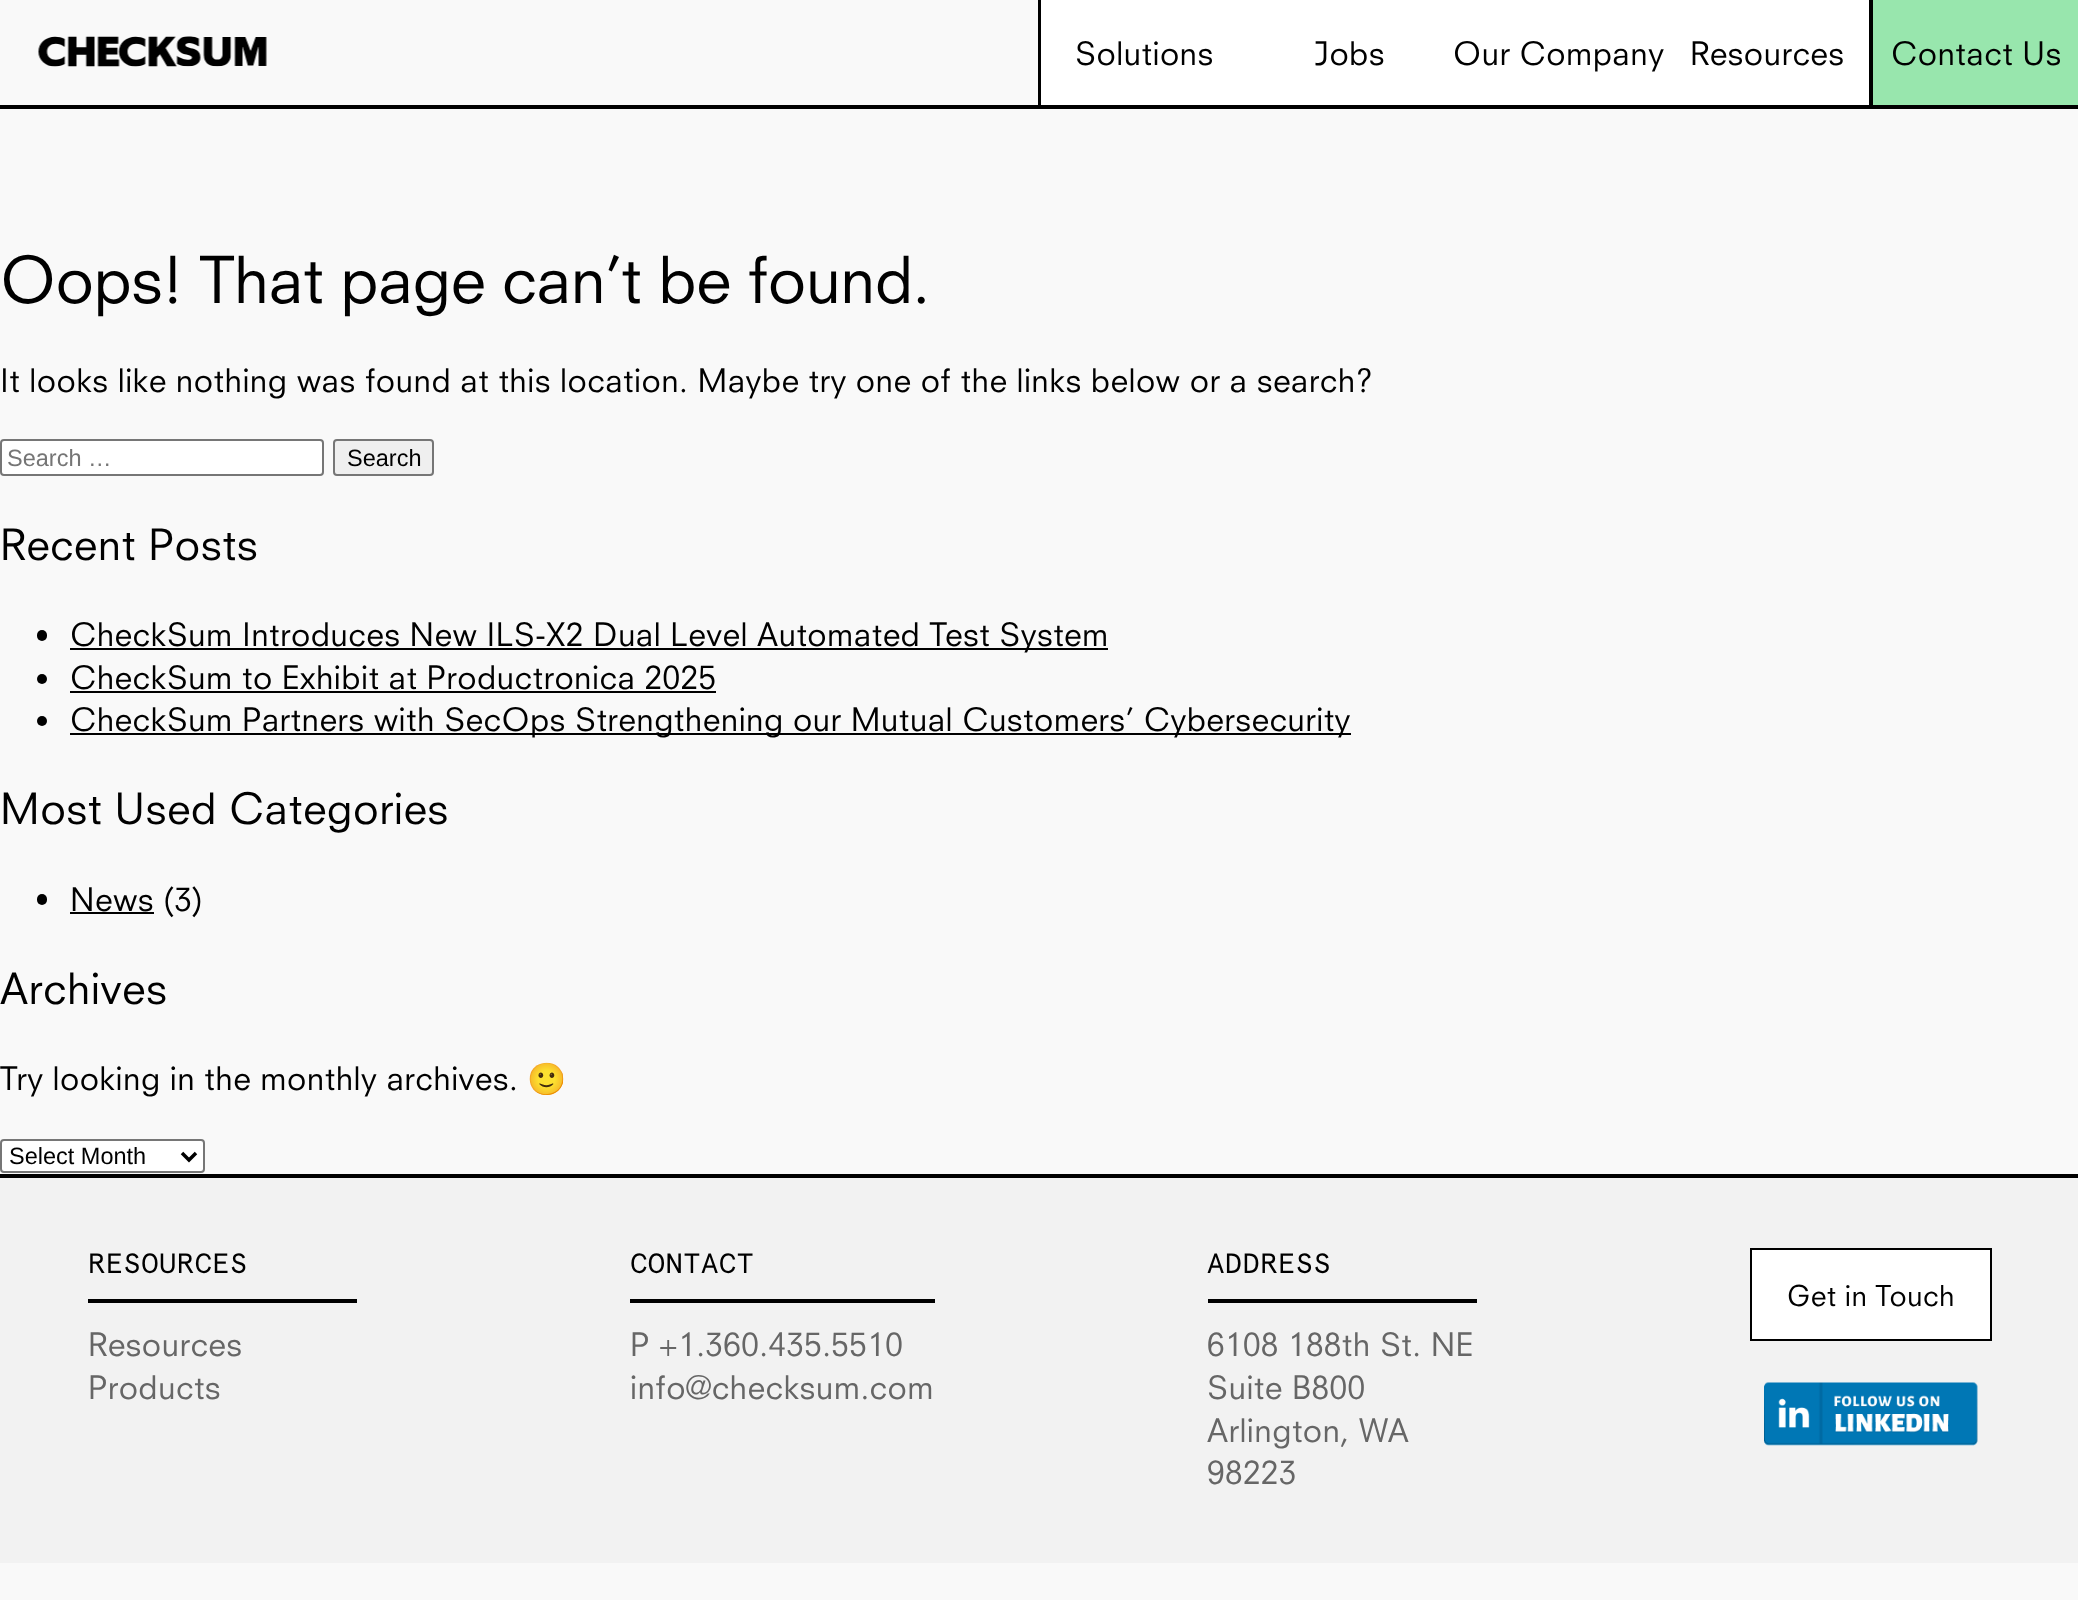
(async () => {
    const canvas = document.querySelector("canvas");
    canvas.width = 2078;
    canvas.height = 1600;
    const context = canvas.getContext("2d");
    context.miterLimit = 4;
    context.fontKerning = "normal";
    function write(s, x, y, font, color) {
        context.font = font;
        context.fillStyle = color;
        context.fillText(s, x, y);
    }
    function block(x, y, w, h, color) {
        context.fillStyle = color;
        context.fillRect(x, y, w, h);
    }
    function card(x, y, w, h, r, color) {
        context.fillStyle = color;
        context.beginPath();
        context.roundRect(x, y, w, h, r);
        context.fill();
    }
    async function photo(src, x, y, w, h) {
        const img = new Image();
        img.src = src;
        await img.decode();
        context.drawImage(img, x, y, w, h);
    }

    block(0, 0, 2078, 1600, "rgb(249, 249, 249)");
    block(0, 105, 2078, 4, "rgb(0, 0, 0)");
    await photo("media/1.png", 38, 36, 229, 31);
    block(1038, 0, 3, 105, "rgb(0, 0, 0)");
    block(1041, 0, 828, 105, "rgb(255, 255, 255)");
    context.letterSpacing = "0.43px";
    write("Solutions", 1075, 65, "31.5px 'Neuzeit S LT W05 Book'", "rgb(0, 0, 0)");
    write("Jobs", 1315, 65, "31.5px 'Neuzeit S LT W05 Book'", "rgb(0, 0, 0)");
    write("Our Company", 1453, 65, "31.5px 'Neuzeit S LT W05 Book'", "rgb(0, 0, 0)");
    write("Resources", 1690, 65, "31.5px 'Neuzeit S LT W05 Book'", "rgb(0, 0, 0)");
    block(1873, 0, 205, 105, "rgb(152, 230, 173)");
    block(1869, 0, 4, 105, "rgb(0, 0, 0)");
    write("Contact Us", 1891, 65, "31.5px 'Neuzeit S LT W05 Book'", "rgb(0, 0, 0)");
    block(0, 1174, 2078, 4, "rgb(0, 0, 0)");
    context.letterSpacing = "-0.6px";
    write("Oops! That page can’t be found.", 0, 303, "63px 'Neuzeit S LT W05 Book'", "rgb(0, 0, 0)");
    context.letterSpacing = "0.43px";
    write("It looks like nothing was found at this location. Maybe try one of the links below or a search?", 0, 392, "31.5px 'Neuzeit S LT W05 Book'", "rgb(0, 0, 0)");
    context.fillStyle = "rgb(255, 255, 255)";
    context.beginPath();
    context.roundRect(1, 440, 322, 35, 3);
    context.fill();
    context.strokeStyle = "rgb(118, 118, 118)";
    context.lineWidth = 2;
    context.stroke();
    context.letterSpacing = "0px";
    write("Search …", 7, 466, "23.5px Liberation Sans", "rgb(117, 117, 117)");
    context.fillStyle = "rgb(239, 239, 239)";
    context.beginPath();
    context.roundRect(334, 440, 99, 35, 3);
    context.fill();
    context.stroke();
    write("Search", 347, 466, "23.5px Liberation Sans", "rgb(0, 0, 0)");
    context.letterSpacing = "0.5px";
    write("Recent Posts", 0, 560, "42px 'Neuzeit S LT W05 Book'", "rgb(0, 0, 0)");
    card(37, 630, 10, 11, 5, "rgb(0, 0, 0)");
    block(70, 648, 1038, 2, "rgb(0, 0, 0)");
    context.letterSpacing = "0.43px";
    write("CheckSum Introduces New ILS-X2 Dual Level Automated Test System", 70, 646, "31.5px 'Neuzeit S LT W05 Book'", "rgb(0, 0, 0)");
    context.beginPath();
    context.arc(42, 679, 5, 0, Math.PI * 2);
    context.fill();
    write("CheckSum to Exhibit at Productronica 2025", 70, 689, "31.5px 'Neuzeit S LT W05 Book'", "rgb(0, 0, 0)");
    block(70, 691, 646, 2, "rgb(0, 0, 0)");
    context.beginPath();
    context.arc(42, 721, 5, 0, Math.PI * 2);
    context.fill();
    block(70, 733, 1281, 2, "rgb(0, 0, 0)");
    write("CheckSum Partners with SecOps Strengthening our Mutual Customers’ Cybersecurity", 70, 731, "31.5px 'Neuzeit S LT W05 Book'", "rgb(0, 0, 0)");
    context.letterSpacing = "0.5px";
    write("Most Used Categories", 0, 824, "42px 'Neuzeit S LT W05 Book'", "rgb(0, 0, 0)");
    card(37, 894, 10, 11, 5, "rgb(0, 0, 0)");
    block(70, 912, 84, 2, "rgb(0, 0, 0)");
    context.letterSpacing = "0.43px";
    write("News (3)", 70, 911, "31.5px 'Neuzeit S LT W05 Book'", "rgb(0, 0, 0)");
    context.letterSpacing = "0.5px";
    write("Archives", 0, 1004, "42px 'Neuzeit S LT W05 Book'", "rgb(0, 0, 0)");
    context.letterSpacing = "0.43px";
    write("Try looking in the monthly archives.", 0, 1090, "31.5px 'Neuzeit S LT W05 Book'", "rgb(0, 0, 0)");
    write("🙂", 527, 1090, "31.5px Noto Color Emoji", "rgb(0, 0, 0)");
    context.fillStyle = "rgb(255, 255, 255)";
    context.beginPath();
    context.roundRect(1, 1140, 203, 32, 3);
    context.fill();
    context.stroke();
    context.beginPath();
    context.moveTo(182, 1153);
    context.lineTo(189, 1160);
    context.lineTo(196, 1153);
    context.strokeStyle = "rgb(0, 0, 0)";
    context.lineWidth = 3.5;
    context.stroke();
    context.letterSpacing = "0px";
    write("Select Month", 9, 1164, "23.5px Liberation Sans", "rgb(0, 0, 0)");
    block(0, 1178, 2078, 385, "rgb(242, 242, 242)");
    block(88, 1299, 269, 4, "rgb(0, 0, 0)");
    context.letterSpacing = "0.4px";
    write("RESOURCES", 88, 1273, "28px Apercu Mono", "rgb(0, 0, 0)");
    context.letterSpacing = "0.43px";
    write("Resources", 88, 1356, "31.5px 'Neuzeit S LT W05 Book'", "rgb(102, 102, 102)");
    write("Products", 88, 1399, "31.5px 'Neuzeit S LT W05 Book'", "rgb(102, 102, 102)");
    block(630, 1299, 305, 4, "rgb(0, 0, 0)");
    context.letterSpacing = "0.4px";
    write("CONTACT", 630, 1273, "28px Apercu Mono", "rgb(0, 0, 0)");
    context.letterSpacing = "0.43px";
    write("P +1.360.435.5510", 630, 1356, "31.5px 'Neuzeit S LT W05 Book'", "rgb(102, 102, 102)");
    write("info@checksum.com", 630, 1399, "31.5px 'Neuzeit S LT W05 Book'", "rgb(102, 102, 102)");
    block(1208, 1299, 269, 4, "rgb(0, 0, 0)");
    context.letterSpacing = "0.4px";
    write("ADDRESS", 1207, 1273, "28px Apercu Mono", "rgb(0, 0, 0)");
    context.letterSpacing = "0.43px";
    write("6108 188th St. NE", 1207, 1356, "31.5px 'Neuzeit S LT W05 Book'", "rgb(102, 102, 102)");
    write("Suite B800", 1207, 1399, "31.5px 'Neuzeit S LT W05 Book'", "rgb(102, 102, 102)");
    write("Arlington, WA", 1207, 1442, "31.5px 'Neuzeit S LT W05 Book'", "rgb(102, 102, 102)");
    write("98223", 1207, 1484, "31.5px 'Neuzeit S LT W05 Book'", "rgb(102, 102, 102)");
    context.fillStyle = "rgb(255, 255, 255)";
    context.beginPath();
    context.rect(1751, 1249, 240, 91);
    context.fill();
    context.lineWidth = 2;
    context.stroke();
    write("Get in Touch", 1787, 1306, "28px 'Neuzeit S LT W05 Book'", "rgb(0, 0, 0)");
    await photo("media/2.png", 1764, 1382, 214, 64);
})();
